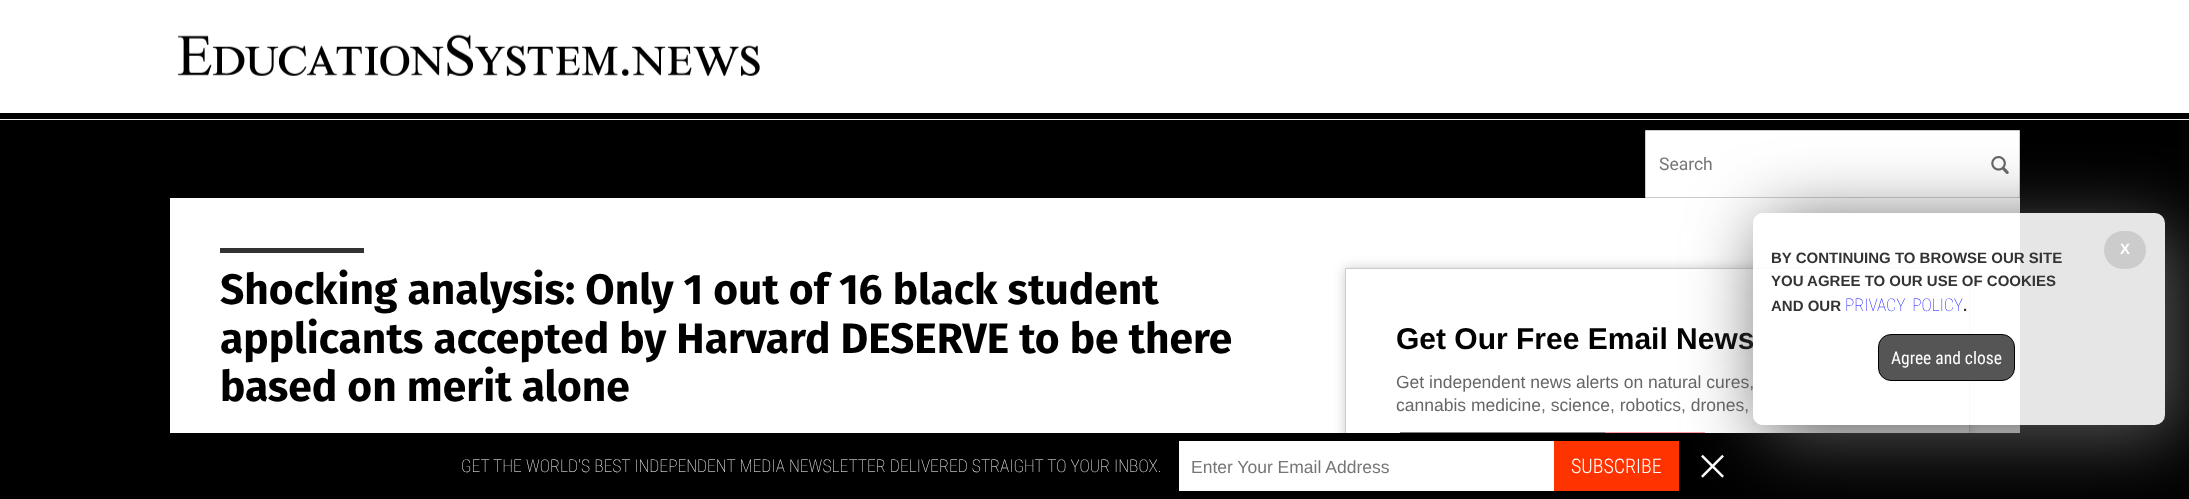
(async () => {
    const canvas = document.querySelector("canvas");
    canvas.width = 2189;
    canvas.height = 499;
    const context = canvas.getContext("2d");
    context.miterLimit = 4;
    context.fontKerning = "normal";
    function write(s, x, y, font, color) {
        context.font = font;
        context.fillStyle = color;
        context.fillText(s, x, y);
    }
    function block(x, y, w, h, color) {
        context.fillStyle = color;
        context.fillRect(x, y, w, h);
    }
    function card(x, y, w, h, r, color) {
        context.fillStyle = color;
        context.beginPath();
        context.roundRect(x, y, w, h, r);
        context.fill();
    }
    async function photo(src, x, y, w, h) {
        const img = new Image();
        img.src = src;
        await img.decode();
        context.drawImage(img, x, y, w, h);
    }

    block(0, 0, 2189, 499, "rgb(0, 0, 0)");
    block(0, 0, 2189, 113, "rgb(255, 255, 255)");
    await photo("media/1.png", 178, 34, 582, 43);
    block(0, 119, 2189, 1, "rgb(236, 236, 236)");
    context.fillStyle = "rgb(255, 255, 255)";
    context.beginPath();
    context.rect(1645.5, 130.5, 374, 67);
    context.fill();
    context.strokeStyle = "rgb(204, 204, 204)";
    context.stroke();
    write("Search", 1659, 170, "17.5px Roboto", "rgb(117, 117, 117)");
    await photo("media/2.png", 1991, 156, 18, 18);
    block(170, 198, 1850, 235, "rgb(255, 255, 255)");
    block(220, 248, 144, 5, "rgb(51, 51, 51)");
    write("Shocking analysis: Only 1 out of 16 black student", 220, 304, "bold 42.5px Fira Sans", "rgb(0, 0, 0)");
    write("applicants accepted by Harvard DESERVE to be there", 220, 353, "bold 42.5px Fira Sans", "rgb(0, 0, 0)");
    write("based on merit alone", 220, 401, "bold 42.5px Fira Sans", "rgb(0, 0, 0)");
    context.save();
    context.beginPath();
    context.moveTo(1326, 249);
    context.lineTo(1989, 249);
    context.lineTo(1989, 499);
    context.lineTo(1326, 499);
    context.closePath();
    context.moveTo(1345, 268);
    context.lineTo(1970, 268);
    context.lineTo(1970, 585);
    context.lineTo(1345, 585);
    context.closePath();
    context.clip("evenodd");
    context.fillStyle = "rgb(204, 204, 204)";
    context.filter = "blur(6px)";
    context.beginPath();
    context.rect(1345, 268, 625, 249);
    context.fill();
    context.filter = "none";
    context.restore();
    context.strokeRect(1345.5, 268.5, 624, 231);
    write("Get Our Free Email News", 1396, 349, "bold 30px Liberation Sans", "rgb(0, 0, 0)");
    write("Get independent news alerts on natural cures,", 1396, 388, "17.5px Liberation Sans", "rgb(102, 102, 102)");
    write("cannabis medicine, science, robotics, drones,", 1396, 411, "17.5px Liberation Sans", "rgb(102, 102, 102)");
    await photo("media/3.png", 1400, 432, 305, 1);
    block(1332, 433, 651, 66, "rgb(0, 0, 0)");
    block(1554, 441, 125, 50, "rgb(255, 51, 0)");
    await photo("media/4.png", 1701, 454, 23, 24);
    context.save();
    context.beginPath();
    context.moveTo(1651, 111);
    context.lineTo(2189, 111);
    context.lineTo(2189, 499);
    context.lineTo(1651, 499);
    context.closePath();
    context.moveTo(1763, 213);
    context.lineTo(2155, 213);
    context.bezierCurveTo(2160.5, 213, 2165, 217.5, 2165, 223);
    context.lineTo(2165, 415);
    context.bezierCurveTo(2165, 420.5, 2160.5, 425, 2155, 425);
    context.lineTo(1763, 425);
    context.bezierCurveTo(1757.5, 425, 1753, 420.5, 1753, 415);
    context.lineTo(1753, 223);
    context.bezierCurveTo(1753, 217.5, 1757.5, 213, 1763, 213);
    context.closePath();
    context.clip("evenodd");
    context.fillStyle = "rgb(85, 85, 85)";
    context.filter = "blur(37.5px)";
    context.beginPath();
    context.roundRect(1765, 225, 413, 213, 10);
    context.fill();
    context.filter = "none";
    context.restore();
    card(1753, 213, 412, 212, 10, "rgba(255, 255, 255, 0.9)");
    card(2104, 231, 42, 38, 19, "rgb(204, 204, 204)");
    write("X", 2120, 254, "bold 15px Liberation Sans", "rgb(255, 255, 255)");
    write("BY CONTINUING TO BROWSE OUR SITE", 1771, 263, "bold 15px Liberation Sans", "rgb(51, 51, 51)");
    write("YOU AGREE TO OUR USE OF COOKIES", 1771, 286, "bold 15px Liberation Sans", "rgb(51, 51, 51)");
    write("AND OUR", 1771, 311, "bold 15px Liberation Sans", "rgb(51, 51, 51)");
    context.wordSpacing = "3px";
    write("PRIVACY POLICY", 1845, 311, "100 17.5px Roboto Condensed", "rgb(0, 0, 255)");
    context.wordSpacing = "0px";
    write(".", 1963, 311, "bold 15px Liberation Sans", "rgb(51, 51, 51)");
    context.fillStyle = "rgb(85, 85, 85)";
    context.beginPath();
    context.roundRect(1878.5, 334.5, 136, 46, 12.5);
    context.fill();
    context.strokeStyle = "rgb(0, 0, 0)";
    context.stroke();
    write("Agree and close", 1891, 364, "17.5px Roboto Condensed", "rgb(255, 255, 255)");
    context.wordSpacing = "0.25px";
    write("GET THE WORLD'S BEST INDEPENDENT MEDIA NEWSLETTER DELIVERED STRAIGHT TO YOUR INBOX.", 461, 472, "100 17.5px Roboto Condensed", "rgb(255, 255, 255)");
    block(1179, 441, 375, 50, "rgb(255, 255, 255)");
    context.wordSpacing = "0px";
    write("Enter Your Email Address", 1191, 473, "17.5px Liberation Sans", "rgb(117, 117, 117)");
    write("SUBSCRIBE", 1571, 473, "300 20px Roboto Condensed", "rgb(255, 255, 255)");
})();
